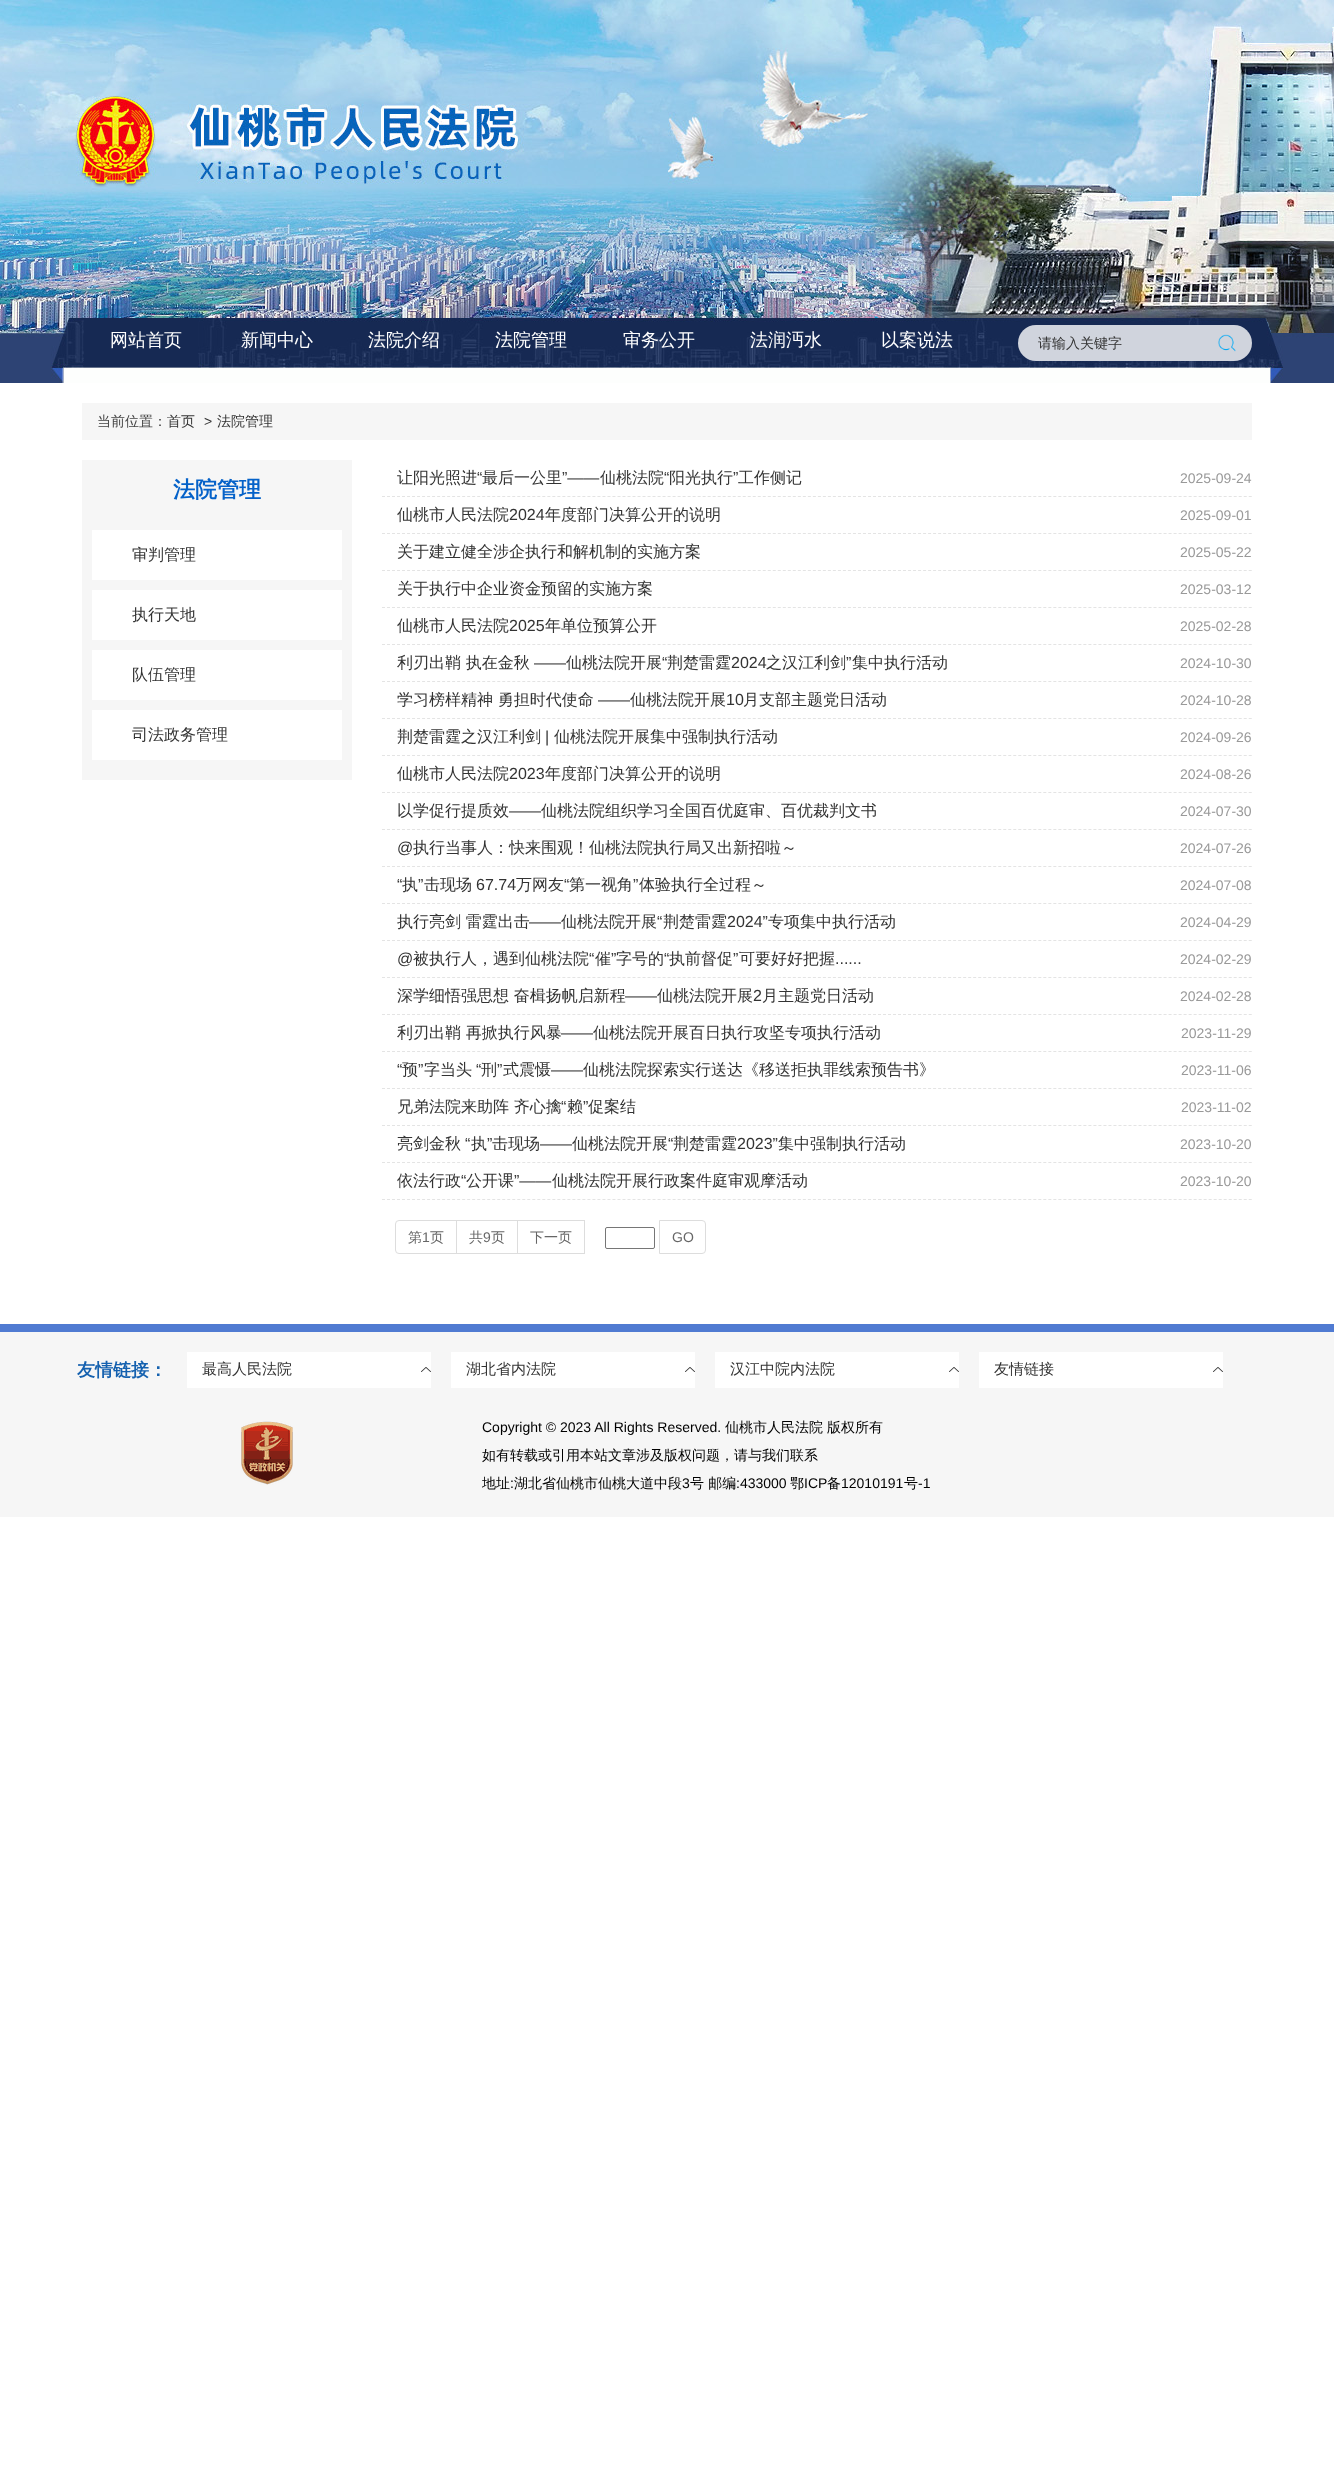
(async () => {
    const canvas = document.querySelector("canvas");
    canvas.width = 1334;
    canvas.height = 2475;
    const context = canvas.getContext("2d");
    context.miterLimit = 4;
    context.fontKerning = "normal";
    function write(s, x, y, font, color) {
        context.font = font;
        context.fillStyle = color;
        context.fillText(s, x, y);
    }
    function block(x, y, w, h, color) {
        context.fillStyle = color;
        context.fillRect(x, y, w, h);
    }
    function card(x, y, w, h, r, color) {
        context.fillStyle = color;
        context.beginPath();
        context.roundRect(x, y, w, h, r);
        context.fill();
    }
    async function photo(src, x, y, w, h) {
        const img = new Image();
        img.src = src;
        await img.decode();
        context.drawImage(img, x, y, w, h);
    }

    block(0, 0, 1334, 2475, "rgb(255, 255, 255)");
    await photo("media/1.png", 0, 0, 1334, 334);
    await photo("media/2.png", 0, 318, 1334, 65);
    write("网站首页", 110, 346, "500 18px WenQuanYi Zen Hei", "rgb(255, 255, 255)");
    write("新闻中心", 241, 346, "500 18px WenQuanYi Zen Hei", "rgb(255, 255, 255)");
    write("法院介绍", 368, 346, "500 18px WenQuanYi Zen Hei", "rgb(255, 255, 255)");
    write("法院管理", 495, 346, "500 18px WenQuanYi Zen Hei", "rgb(255, 255, 255)");
    write("审务公开", 623, 346, "500 18px WenQuanYi Zen Hei", "rgb(255, 255, 255)");
    write("法润沔水", 750, 346, "500 18px WenQuanYi Zen Hei", "rgb(255, 255, 255)");
    write("以案说法", 881, 346, "500 18px WenQuanYi Zen Hei", "rgb(255, 255, 255)");
    card(1018, 325, 234, 36, 18, "rgb(208, 212, 221)");
    write("请输入关键字", 1038, 348, "500 14px WenQuanYi Zen Hei", "rgb(51, 51, 51)");
    await photo("media/3.png", 1218, 334, 18, 18);
    block(82, 403, 1170, 37, "rgb(246, 246, 246)");
    write("当前位置：", 97, 426, "500 14px WenQuanYi Zen Hei", "rgb(68, 68, 68)");
    write("首页", 167, 426, "500 14px WenQuanYi Zen Hei", "rgb(51, 51, 51)");
    write(">", 204, 426, "14px Liberation Sans", "rgb(51, 51, 51)");
    write("法院管理", 217, 426, "500 14px WenQuanYi Zen Hei", "rgb(51, 51, 51)");
    block(82, 460, 270, 320, "rgb(246, 246, 246)");
    write("法院管理", 173, 497, "bold 22px WenQuanYi Zen Hei", "rgb(5, 98, 201)");
    block(92, 530, 250, 50, "rgb(255, 255, 255)");
    write("审判管理", 132, 560, "500 16px WenQuanYi Zen Hei", "rgb(51, 51, 51)");
    block(92, 590, 250, 50, "rgb(255, 255, 255)");
    write("执行天地", 132, 620, "500 16px WenQuanYi Zen Hei", "rgb(51, 51, 51)");
    block(92, 650, 250, 50, "rgb(255, 255, 255)");
    write("队伍管理", 132, 680, "500 16px WenQuanYi Zen Hei", "rgb(51, 51, 51)");
    block(92, 710, 250, 50, "rgb(255, 255, 255)");
    write("司法政务管理", 132, 740, "500 16px WenQuanYi Zen Hei", "rgb(51, 51, 51)");
    context.beginPath();
    context.moveTo(382, 496.5);
    context.lineTo(1252, 496.5);
    context.strokeStyle = "rgb(228, 228, 228)";
    context.setLineDash([3, 2.01]);
    context.stroke();
    write("让阳光照进", 397, 483, "500 16px WenQuanYi Zen Hei", "rgb(51, 51, 51)");
    write("“", 477, 483, "16px Liberation Sans", "rgb(51, 51, 51)");
    write("最后一公里", 482, 483, "500 16px WenQuanYi Zen Hei", "rgb(51, 51, 51)");
    write("”——", 562, 483, "16px Liberation Sans", "rgb(51, 51, 51)");
    write("仙桃法院", 600, 483, "500 16px WenQuanYi Zen Hei", "rgb(51, 51, 51)");
    write("“", 664, 483, "16px Liberation Sans", "rgb(51, 51, 51)");
    write("阳光执行", 669, 483, "500 16px WenQuanYi Zen Hei", "rgb(51, 51, 51)");
    write("”", 733, 483, "16px Liberation Sans", "rgb(51, 51, 51)");
    write("工作侧记", 738, 483, "500 16px WenQuanYi Zen Hei", "rgb(51, 51, 51)");
    write("2025-09-24", 1180, 483, "14px Liberation Sans", "rgb(153, 153, 153)");
    context.beginPath();
    context.moveTo(382, 533.5);
    context.lineTo(1252, 533.5);
    context.stroke();
    write("仙桃市人民法院", 397, 520, "500 16px WenQuanYi Zen Hei", "rgb(51, 51, 51)");
    write("2024", 509, 520, "16px Liberation Sans", "rgb(51, 51, 51)");
    write("年度部门决算公开的说明", 545, 520, "500 16px WenQuanYi Zen Hei", "rgb(51, 51, 51)");
    write("2025-09-01", 1180, 520, "14px Liberation Sans", "rgb(153, 153, 153)");
    context.beginPath();
    context.moveTo(382, 570.5);
    context.lineTo(1252, 570.5);
    context.stroke();
    write("关于建立健全涉企执行和解机制的实施方案", 397, 557, "500 16px WenQuanYi Zen Hei", "rgb(51, 51, 51)");
    write("2025-05-22", 1180, 557, "14px Liberation Sans", "rgb(153, 153, 153)");
    context.beginPath();
    context.moveTo(382, 607.5);
    context.lineTo(1252, 607.5);
    context.stroke();
    write("关于执行中企业资金预留的实施方案", 397, 594, "500 16px WenQuanYi Zen Hei", "rgb(51, 51, 51)");
    write("2025-03-12", 1180, 594, "14px Liberation Sans", "rgb(153, 153, 153)");
    context.beginPath();
    context.moveTo(382, 644.5);
    context.lineTo(1252, 644.5);
    context.stroke();
    write("仙桃市人民法院", 397, 631, "500 16px WenQuanYi Zen Hei", "rgb(51, 51, 51)");
    write("2025", 509, 631, "16px Liberation Sans", "rgb(51, 51, 51)");
    write("年单位预算公开", 545, 631, "500 16px WenQuanYi Zen Hei", "rgb(51, 51, 51)");
    write("2025-02-28", 1180, 631, "14px Liberation Sans", "rgb(153, 153, 153)");
    context.beginPath();
    context.moveTo(382, 681.5);
    context.lineTo(1252, 681.5);
    context.stroke();
    write("利刃出鞘 执在金秋", 397, 668, "500 16px WenQuanYi Zen Hei", "rgb(51, 51, 51)");
    write("——", 534, 668, "16px Liberation Sans", "rgb(51, 51, 51)");
    write("仙桃法院开展", 566, 668, "500 16px WenQuanYi Zen Hei", "rgb(51, 51, 51)");
    write("“", 662, 668, "16px Liberation Sans", "rgb(51, 51, 51)");
    write("荆楚雷霆", 667, 668, "500 16px WenQuanYi Zen Hei", "rgb(51, 51, 51)");
    write("2024", 731, 668, "16px Liberation Sans", "rgb(51, 51, 51)");
    write("之汉江利剑", 766, 668, "500 16px WenQuanYi Zen Hei", "rgb(51, 51, 51)");
    write("”", 846, 668, "16px Liberation Sans", "rgb(51, 51, 51)");
    write("集中执行活动", 852, 668, "500 16px WenQuanYi Zen Hei", "rgb(51, 51, 51)");
    write("2024-10-30", 1180, 668, "14px Liberation Sans", "rgb(153, 153, 153)");
    context.beginPath();
    context.moveTo(382, 718.5);
    context.lineTo(1252, 718.5);
    context.stroke();
    write("学习榜样精神 勇担时代使命", 397, 705, "500 16px WenQuanYi Zen Hei", "rgb(51, 51, 51)");
    write("——", 598, 705, "16px Liberation Sans", "rgb(51, 51, 51)");
    write("仙桃法院开展", 630, 705, "500 16px WenQuanYi Zen Hei", "rgb(51, 51, 51)");
    write("10", 726, 705, "16px Liberation Sans", "rgb(51, 51, 51)");
    write("月支部主题党日活动", 743, 705, "500 16px WenQuanYi Zen Hei", "rgb(51, 51, 51)");
    write("2024-10-28", 1180, 705, "14px Liberation Sans", "rgb(153, 153, 153)");
    context.beginPath();
    context.moveTo(382, 755.5);
    context.lineTo(1252, 755.5);
    context.stroke();
    write("荆楚雷霆之汉江利剑", 397, 742, "500 16px WenQuanYi Zen Hei", "rgb(51, 51, 51)");
    write("|", 545, 742, "16px Liberation Sans", "rgb(51, 51, 51)");
    write("仙桃法院开展集中强制执行活动", 554, 742, "500 16px WenQuanYi Zen Hei", "rgb(51, 51, 51)");
    write("2024-09-26", 1180, 742, "14px Liberation Sans", "rgb(153, 153, 153)");
    context.beginPath();
    context.moveTo(382, 792.5);
    context.lineTo(1252, 792.5);
    context.stroke();
    write("仙桃市人民法院", 397, 779, "500 16px WenQuanYi Zen Hei", "rgb(51, 51, 51)");
    write("2023", 509, 779, "16px Liberation Sans", "rgb(51, 51, 51)");
    write("年度部门决算公开的说明", 545, 779, "500 16px WenQuanYi Zen Hei", "rgb(51, 51, 51)");
    write("2024-08-26", 1180, 779, "14px Liberation Sans", "rgb(153, 153, 153)");
    context.beginPath();
    context.moveTo(382, 829.5);
    context.lineTo(1252, 829.5);
    context.stroke();
    write("以学促行提质效", 397, 816, "500 16px WenQuanYi Zen Hei", "rgb(51, 51, 51)");
    write("——", 509, 816, "16px Liberation Sans", "rgb(51, 51, 51)");
    write("仙桃法院组织学习全国百优庭审、百优裁判文书", 541, 816, "500 16px WenQuanYi Zen Hei", "rgb(51, 51, 51)");
    write("2024-07-30", 1180, 816, "14px Liberation Sans", "rgb(153, 153, 153)");
    context.beginPath();
    context.moveTo(382, 866.5);
    context.lineTo(1252, 866.5);
    context.stroke();
    write("@", 397, 853, "16px Liberation Sans", "rgb(51, 51, 51)");
    write("执行当事人：快来围观！仙桃法院执行局又出新招啦～", 413, 853, "500 16px WenQuanYi Zen Hei", "rgb(51, 51, 51)");
    write("2024-07-26", 1180, 853, "14px Liberation Sans", "rgb(153, 153, 153)");
    context.beginPath();
    context.moveTo(382, 903.5);
    context.lineTo(1252, 903.5);
    context.stroke();
    write("“", 397, 890, "16px Liberation Sans", "rgb(51, 51, 51)");
    write("执", 402, 890, "500 16px WenQuanYi Zen Hei", "rgb(51, 51, 51)");
    write("”", 418, 890, "16px Liberation Sans", "rgb(51, 51, 51)");
    write("击现场", 424, 890, "500 16px WenQuanYi Zen Hei", "rgb(51, 51, 51)");
    write("67.74", 476, 890, "16px Liberation Sans", "rgb(51, 51, 51)");
    write("万网友", 516, 890, "500 16px WenQuanYi Zen Hei", "rgb(51, 51, 51)");
    write("“", 564, 890, "16px Liberation Sans", "rgb(51, 51, 51)");
    write("第一视角", 569, 890, "500 16px WenQuanYi Zen Hei", "rgb(51, 51, 51)");
    write("”", 633, 890, "16px Liberation Sans", "rgb(51, 51, 51)");
    write("体验执行全过程～", 639, 890, "500 16px WenQuanYi Zen Hei", "rgb(51, 51, 51)");
    write("2024-07-08", 1180, 890, "14px Liberation Sans", "rgb(153, 153, 153)");
    context.beginPath();
    context.moveTo(382, 940.5);
    context.lineTo(1252, 940.5);
    context.stroke();
    write("执行亮剑 雷霆出击", 397, 927, "500 16px WenQuanYi Zen Hei", "rgb(51, 51, 51)");
    write("——", 529, 927, "16px Liberation Sans", "rgb(51, 51, 51)");
    write("仙桃法院开展", 561, 927, "500 16px WenQuanYi Zen Hei", "rgb(51, 51, 51)");
    write("“", 657, 927, "16px Liberation Sans", "rgb(51, 51, 51)");
    write("荆楚雷霆", 663, 927, "500 16px WenQuanYi Zen Hei", "rgb(51, 51, 51)");
    write("2024”", 727, 927, "16px Liberation Sans", "rgb(51, 51, 51)");
    write("专项集中执行活动", 768, 927, "500 16px WenQuanYi Zen Hei", "rgb(51, 51, 51)");
    write("2024-04-29", 1180, 927, "14px Liberation Sans", "rgb(153, 153, 153)");
    context.beginPath();
    context.moveTo(382, 977.5);
    context.lineTo(1252, 977.5);
    context.stroke();
    write("@", 397, 964, "16px Liberation Sans", "rgb(51, 51, 51)");
    write("被执行人，遇到仙桃法院", 413, 964, "500 16px WenQuanYi Zen Hei", "rgb(51, 51, 51)");
    write("“", 589, 964, "16px Liberation Sans", "rgb(51, 51, 51)");
    write("催", 595, 964, "500 16px WenQuanYi Zen Hei", "rgb(51, 51, 51)");
    write("”", 611, 964, "16px Liberation Sans", "rgb(51, 51, 51)");
    write("字号的", 616, 964, "500 16px WenQuanYi Zen Hei", "rgb(51, 51, 51)");
    write("“", 664, 964, "16px Liberation Sans", "rgb(51, 51, 51)");
    write("执前督促", 669, 964, "500 16px WenQuanYi Zen Hei", "rgb(51, 51, 51)");
    write("”", 733, 964, "16px Liberation Sans", "rgb(51, 51, 51)");
    write("可要好好把握", 739, 964, "500 16px WenQuanYi Zen Hei", "rgb(51, 51, 51)");
    write("......", 835, 964, "16px Liberation Sans", "rgb(51, 51, 51)");
    write("2024-02-29", 1180, 964, "14px Liberation Sans", "rgb(153, 153, 153)");
    context.beginPath();
    context.moveTo(382, 1014.5);
    context.lineTo(1252, 1014.5);
    context.stroke();
    write("深学细悟强思想 奋楫扬帆启新程", 397, 1001, "500 16px WenQuanYi Zen Hei", "rgb(51, 51, 51)");
    write("——", 625, 1001, "16px Liberation Sans", "rgb(51, 51, 51)");
    write("仙桃法院开展", 657, 1001, "500 16px WenQuanYi Zen Hei", "rgb(51, 51, 51)");
    write("2", 753, 1001, "16px Liberation Sans", "rgb(51, 51, 51)");
    write("月主题党日活动", 762, 1001, "500 16px WenQuanYi Zen Hei", "rgb(51, 51, 51)");
    write("2024-02-28", 1180, 1001, "14px Liberation Sans", "rgb(153, 153, 153)");
    context.beginPath();
    context.moveTo(382, 1051.5);
    context.lineTo(1252, 1051.5);
    context.stroke();
    write("利刃出鞘 再掀执行风暴", 397, 1038, "500 16px WenQuanYi Zen Hei", "rgb(51, 51, 51)");
    write("——", 561, 1038, "16px Liberation Sans", "rgb(51, 51, 51)");
    write("仙桃法院开展百日执行攻坚专项执行活动", 593, 1038, "500 16px WenQuanYi Zen Hei", "rgb(51, 51, 51)");
    write("2023-11-29", 1181, 1038, "14px Liberation Sans", "rgb(153, 153, 153)");
    context.beginPath();
    context.moveTo(382, 1088.5);
    context.lineTo(1252, 1088.5);
    context.stroke();
    write("“", 397, 1075, "16px Liberation Sans", "rgb(51, 51, 51)");
    write("预", 402, 1075, "500 16px WenQuanYi Zen Hei", "rgb(51, 51, 51)");
    write("”", 418, 1075, "16px Liberation Sans", "rgb(51, 51, 51)");
    write("字当头", 424, 1075, "500 16px WenQuanYi Zen Hei", "rgb(51, 51, 51)");
    write("“", 476, 1075, "16px Liberation Sans", "rgb(51, 51, 51)");
    write("刑", 481, 1075, "500 16px WenQuanYi Zen Hei", "rgb(51, 51, 51)");
    write("”", 497, 1075, "16px Liberation Sans", "rgb(51, 51, 51)");
    write("式震慑", 503, 1075, "500 16px WenQuanYi Zen Hei", "rgb(51, 51, 51)");
    write("——", 551, 1075, "16px Liberation Sans", "rgb(51, 51, 51)");
    write("仙桃法院探索实行送达《移送拒执罪线索预告书》", 583, 1075, "500 16px WenQuanYi Zen Hei", "rgb(51, 51, 51)");
    write("2023-11-06", 1181, 1075, "14px Liberation Sans", "rgb(153, 153, 153)");
    context.beginPath();
    context.moveTo(382, 1125.5);
    context.lineTo(1252, 1125.5);
    context.stroke();
    write("兄弟法院来助阵 齐心擒", 397, 1112, "500 16px WenQuanYi Zen Hei", "rgb(51, 51, 51)");
    write("“", 561, 1112, "16px Liberation Sans", "rgb(51, 51, 51)");
    write("赖", 567, 1112, "500 16px WenQuanYi Zen Hei", "rgb(51, 51, 51)");
    write("”", 583, 1112, "16px Liberation Sans", "rgb(51, 51, 51)");
    write("促案结", 588, 1112, "500 16px WenQuanYi Zen Hei", "rgb(51, 51, 51)");
    write("2023-11-02", 1181, 1112, "14px Liberation Sans", "rgb(153, 153, 153)");
    context.beginPath();
    context.moveTo(382, 1162.5);
    context.lineTo(1252, 1162.5);
    context.stroke();
    write("亮剑金秋", 397, 1149, "500 16px WenQuanYi Zen Hei", "rgb(51, 51, 51)");
    write("“", 465, 1149, "16px Liberation Sans", "rgb(51, 51, 51)");
    write("执", 471, 1149, "500 16px WenQuanYi Zen Hei", "rgb(51, 51, 51)");
    write("”", 487, 1149, "16px Liberation Sans", "rgb(51, 51, 51)");
    write("击现场", 492, 1149, "500 16px WenQuanYi Zen Hei", "rgb(51, 51, 51)");
    write("——", 540, 1149, "16px Liberation Sans", "rgb(51, 51, 51)");
    write("仙桃法院开展", 572, 1149, "500 16px WenQuanYi Zen Hei", "rgb(51, 51, 51)");
    write("“", 668, 1149, "16px Liberation Sans", "rgb(51, 51, 51)");
    write("荆楚雷霆", 673, 1149, "500 16px WenQuanYi Zen Hei", "rgb(51, 51, 51)");
    write("2023”", 737, 1149, "16px Liberation Sans", "rgb(51, 51, 51)");
    write("集中强制执行活动", 778, 1149, "500 16px WenQuanYi Zen Hei", "rgb(51, 51, 51)");
    write("2023-10-20", 1180, 1149, "14px Liberation Sans", "rgb(153, 153, 153)");
    context.beginPath();
    context.moveTo(382, 1199.5);
    context.lineTo(1252, 1199.5);
    context.stroke();
    write("依法行政", 397, 1186, "500 16px WenQuanYi Zen Hei", "rgb(51, 51, 51)");
    write("“", 461, 1186, "16px Liberation Sans", "rgb(51, 51, 51)");
    write("公开课", 466, 1186, "500 16px WenQuanYi Zen Hei", "rgb(51, 51, 51)");
    write("”——", 514, 1186, "16px Liberation Sans", "rgb(51, 51, 51)");
    write("仙桃法院开展行政案件庭审观摩活动", 552, 1186, "500 16px WenQuanYi Zen Hei", "rgb(51, 51, 51)");
    write("2023-10-20", 1180, 1186, "14px Liberation Sans", "rgb(153, 153, 153)");
    context.beginPath();
    context.roundRect(395.5, 1220.5, 61, 33, [3.5, 0, 0, 3.5]);
    context.strokeStyle = "rgb(221, 221, 221)";
    context.setLineDash([]);
    context.stroke();
    write("第", 408, 1242, "500 14px WenQuanYi Zen Hei", "rgb(102, 102, 102)");
    write("1", 422, 1242, "14px Liberation Sans", "rgb(102, 102, 102)");
    write("页", 430, 1242, "500 14px WenQuanYi Zen Hei", "rgb(102, 102, 102)");
    context.strokeRect(456.5, 1220.5, 61, 33);
    write("共", 469, 1242, "500 14px WenQuanYi Zen Hei", "rgb(102, 102, 102)");
    write("9", 483, 1242, "14px Liberation Sans", "rgb(102, 102, 102)");
    write("页", 491, 1242, "500 14px WenQuanYi Zen Hei", "rgb(102, 102, 102)");
    context.strokeRect(517.5, 1220.5, 67, 33);
    write("下一页", 530, 1242, "500 14px WenQuanYi Zen Hei", "rgb(102, 102, 102)");
    context.beginPath();
    context.roundRect(605.5, 1227.5, 49, 21, 1.5);
    context.strokeStyle = "rgb(118, 118, 118)";
    context.stroke();
    context.beginPath();
    context.roundRect(659.5, 1220.5, 46, 33, [0, 3.5, 3.5, 0]);
    context.strokeStyle = "rgb(221, 221, 221)";
    context.stroke();
    write("GO", 672, 1242, "14px Liberation Sans", "rgb(102, 102, 102)");
    block(0, 1332, 1334, 185, "rgb(246, 246, 246)");
    block(0, 1324, 1334, 8, "rgb(80, 123, 210)");
    write("友情链接：", 77, 1376, "bold 18px WenQuanYi Zen Hei", "rgb(21, 97, 175)");
    block(187, 1352, 244, 36, "rgb(255, 255, 255)");
    await photo("media/4.png", 421, 1367, 10, 5);
    write("最高人民法院", 202, 1374, "500 15px WenQuanYi Zen Hei", "rgb(51, 51, 51)");
    block(451, 1352, 244, 36, "rgb(255, 255, 255)");
    await photo("media/4.png", 685, 1367, 10, 5);
    write("湖北省内法院", 466, 1374, "500 15px WenQuanYi Zen Hei", "rgb(51, 51, 51)");
    block(715, 1352, 244, 36, "rgb(255, 255, 255)");
    await photo("media/4.png", 949, 1367, 10, 5);
    write("汉江中院内法院", 730, 1374, "500 15px WenQuanYi Zen Hei", "rgb(51, 51, 51)");
    block(979, 1352, 244, 36, "rgb(255, 255, 255)");
    await photo("media/4.png", 1213, 1367, 10, 5);
    write("友情链接", 994, 1374, "500 15px WenQuanYi Zen Hei", "rgb(51, 51, 51)");
    await photo("media/5.png", 241, 1421, 52, 64);
    write("Copyright © 2023 All Rights Reserved.", 482, 1432, "14px Liberation Sans", "rgb(0, 0, 0)");
    write("仙桃市人民法院", 725, 1432, "500 14px WenQuanYi Zen Hei", "rgb(0, 0, 0)");
    write("版权所有", 827, 1432, "500 14px WenQuanYi Zen Hei", "rgb(0, 0, 0)");
    write("如有转载或引用本站文章涉及版权问题，请与我们联系", 482, 1460, "500 14px WenQuanYi Zen Hei", "rgb(0, 0, 0)");
    write("地址", 482, 1488, "500 14px WenQuanYi Zen Hei", "rgb(0, 0, 0)");
    write(":", 510, 1488, "14px Liberation Sans", "rgb(0, 0, 0)");
    write("湖北省仙桃市仙桃大道中段", 514, 1488, "500 14px WenQuanYi Zen Hei", "rgb(0, 0, 0)");
    write("3", 682, 1488, "14px Liberation Sans", "rgb(0, 0, 0)");
    write("号 邮编", 690, 1488, "500 14px WenQuanYi Zen Hei", "rgb(0, 0, 0)");
    write(":433000", 736, 1488, "14px Liberation Sans", "rgb(0, 0, 0)");
    write("鄂", 790, 1488, "500 14px WenQuanYi Zen Hei", "rgb(0, 0, 0)");
    write("ICP", 804, 1488, "14px Liberation Sans", "rgb(0, 0, 0)");
    write("备", 827, 1488, "500 14px WenQuanYi Zen Hei", "rgb(0, 0, 0)");
    write("12010191", 841, 1488, "14px Liberation Sans", "rgb(0, 0, 0)");
    write("号", 904, 1488, "500 14px WenQuanYi Zen Hei", "rgb(0, 0, 0)");
    write("-1", 918, 1488, "14px Liberation Sans", "rgb(0, 0, 0)");
})();
